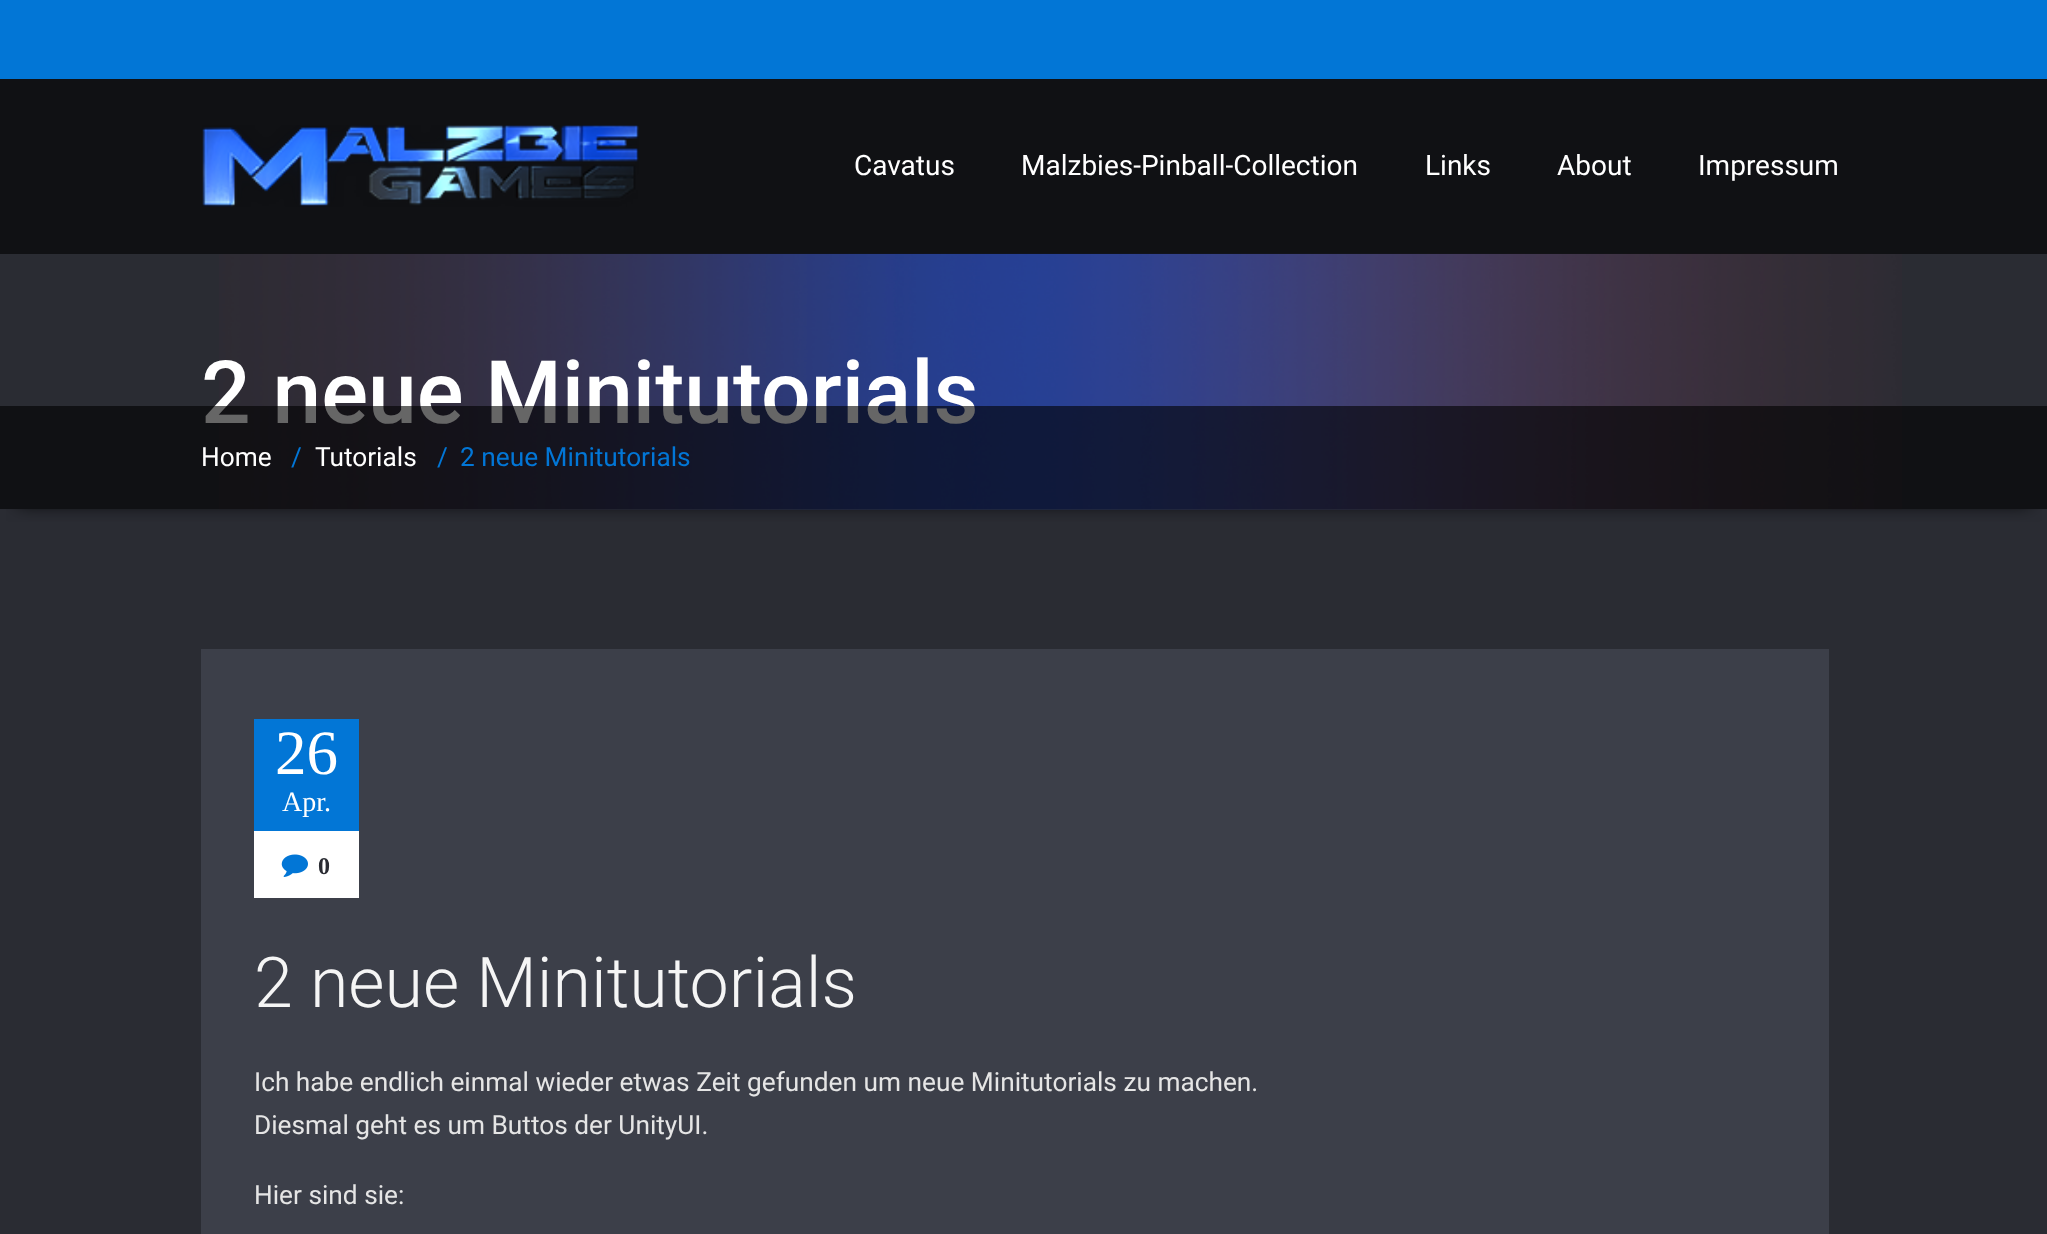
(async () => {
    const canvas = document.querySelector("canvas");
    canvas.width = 2047;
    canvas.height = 1234;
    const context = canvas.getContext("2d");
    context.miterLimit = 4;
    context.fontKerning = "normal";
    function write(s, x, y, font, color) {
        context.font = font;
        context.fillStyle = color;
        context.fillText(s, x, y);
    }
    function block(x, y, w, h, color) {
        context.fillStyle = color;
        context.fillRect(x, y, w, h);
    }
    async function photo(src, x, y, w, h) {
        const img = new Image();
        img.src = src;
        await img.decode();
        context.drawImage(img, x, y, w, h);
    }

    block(0, 0, 2047, 1234, "rgb(42, 44, 51)");
    block(0, 0, 2047, 79, "rgb(2, 118, 214)");
    context.save();
    context.beginPath();
    context.rect(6, 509, 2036, 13);
    context.clip();
    context.fillStyle = "rgb(0, 0, 0)";
    context.filter = "blur(9px)";
    context.beginPath();
    context.rect(18, 284, 2012, 220);
    context.fill();
    context.filter = "none";
    context.restore();
    await photo("media/2.png", 219, 253, 1683, 257);
    block(0, 79, 2047, 175, "rgba(0, 0, 0, 0.6)");
    await photo("media/1.png", 202, 125, 437, 82);
    write("Cavatus", 854, 175, "28px Roboto", "rgb(255, 255, 255)");
    write("Malzbies-Pinball-Collection", 1021, 175, "28px Roboto", "rgb(255, 255, 255)");
    write("Links", 1425, 175, "28px Roboto", "rgb(255, 255, 255)");
    write("About", 1557, 175, "28px Roboto", "rgb(255, 255, 255)");
    write("Impressum", 1698, 175, "28px Roboto", "rgb(255, 255, 255)");
    write("2 neue Minitutorials", 201, 423, "500 87.5px Roboto", "rgb(255, 255, 255)");
    block(0, 406, 2047, 103, "rgba(0, 0, 0, 0.6)");
    write("Home", 201, 466, "26.25px Roboto", "rgb(255, 255, 255)");
    write("/", 291, 466, "26.25px Roboto", "rgb(2, 118, 214)");
    write("Tutorials", 315, 466, "26.25px Roboto", "rgb(255, 255, 255)");
    write("/", 437, 466, "26.25px Roboto", "rgb(2, 118, 214)");
    write("2 neue Minitutorials", 460, 466, "26.25px Roboto", "rgb(2, 118, 214)");
    block(201, 649, 1628, 585, "rgb(60, 63, 73)");
    block(254, 831, 105, 67, "rgb(255, 255, 255)");
    block(254, 719, 105, 112, "rgb(2, 118, 214)");
    write("26", 275, 774, "63px Liberation Serif", "rgb(255, 255, 255)");
    write("Apr.", 282, 811, "28px Liberation Serif", "rgb(255, 255, 255)");
    await photo("media/3.png", 281, 854, 27, 23);
    write("0", 318, 874, "bold 24px Liberation Serif", "rgb(42, 44, 51)");
    write("2 neue Minitutorials", 254, 1007, "300 70px Roboto", "rgb(245, 245, 245)");
    write("Ich habe endlich einmal wieder etwas Zeit gefunden um neue Minitutorials zu machen.", 254, 1091, "26.25px Roboto", "rgb(229, 229, 229)");
    write("Diesmal geht es um Buttos der UnityUI.", 254, 1134, "26.25px Roboto", "rgb(229, 229, 229)");
    write("Hier sind sie:", 254, 1204, "26.25px Roboto", "rgb(229, 229, 229)");
})();
